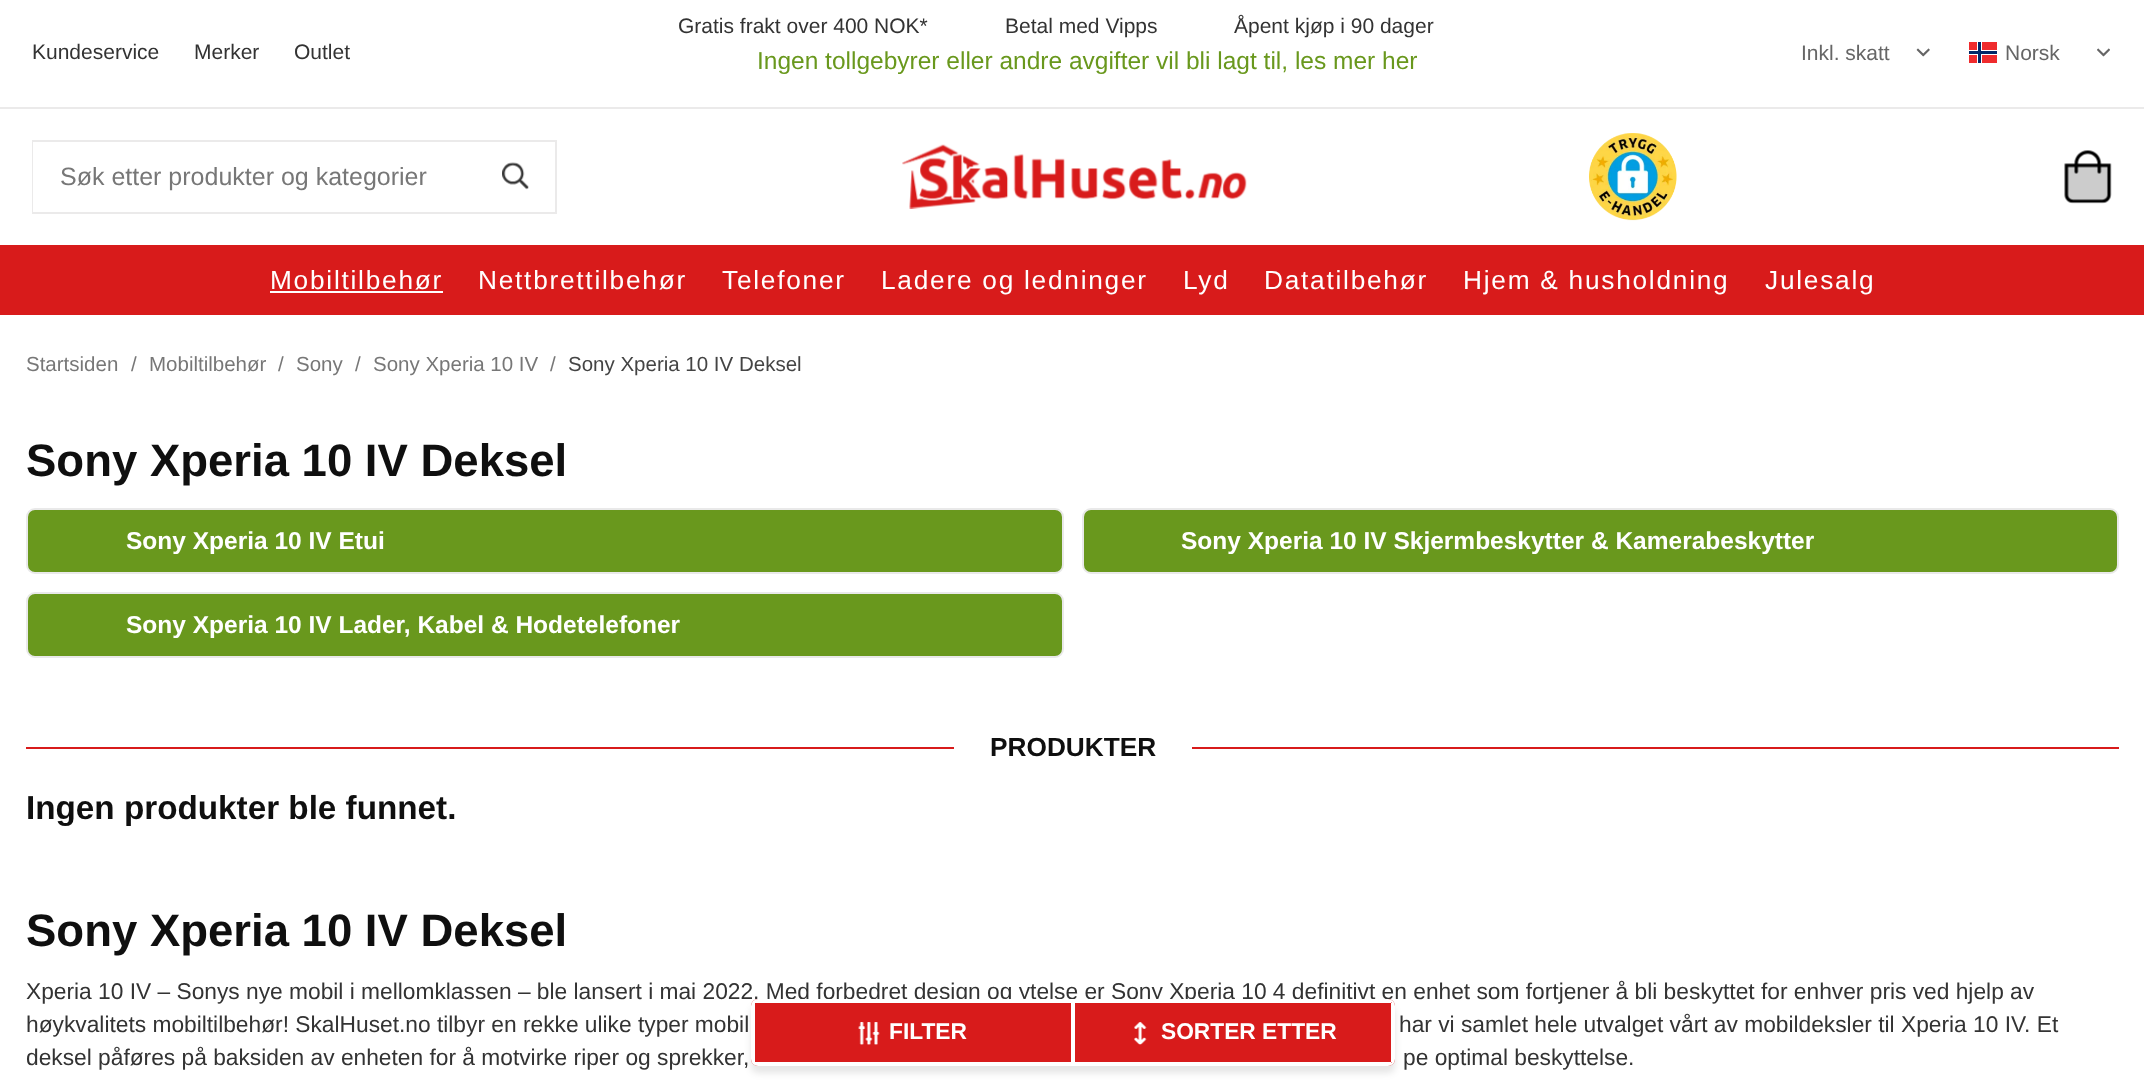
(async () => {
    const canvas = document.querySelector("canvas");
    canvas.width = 2144;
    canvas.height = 1091;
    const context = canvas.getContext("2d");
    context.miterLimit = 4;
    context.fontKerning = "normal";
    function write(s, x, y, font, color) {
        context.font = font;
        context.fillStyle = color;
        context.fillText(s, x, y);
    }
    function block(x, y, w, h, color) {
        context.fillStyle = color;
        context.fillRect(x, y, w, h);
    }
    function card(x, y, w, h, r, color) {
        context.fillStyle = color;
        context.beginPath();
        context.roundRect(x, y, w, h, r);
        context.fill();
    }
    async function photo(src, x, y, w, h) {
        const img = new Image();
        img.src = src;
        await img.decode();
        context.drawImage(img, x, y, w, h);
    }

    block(0, 0, 2144, 1091, "rgb(255, 255, 255)");
    block(0, 107, 2144, 2, "rgb(235, 234, 234)");
    write("Kundeservice", 32, 59, "21px Liberation Sans", "rgb(51, 51, 51)");
    write("Merker", 194, 59, "21px Liberation Sans", "rgb(51, 51, 51)");
    write("Outlet", 294, 59, "21px Liberation Sans", "rgb(51, 51, 51)");
    write("Gratis frakt over 400 NOK*", 678, 33, "21px Liberation Sans", "rgb(51, 51, 51)");
    write("Betal med Vipps", 1005, 33, "21px Liberation Sans", "rgb(51, 51, 51)");
    write("Åpent kjøp i 90 dager", 1234, 33, "21px Liberation Sans", "rgb(51, 51, 51)");
    write("Ingen tollgebyrer eller andre avgifter vil bli lagt til, les mer her", 757, 69, "24.5px Liberation Sans", "rgb(105, 152, 29)");
    write("Inkl. skatt", 1801, 60, "21px Liberation Sans", "rgb(102, 102, 102)");
    await photo("media/1.png", 1916, 48, 14, 9);
    block(1969, 42, 28, 21, "rgb(239, 43, 45)");
    block(1977, 42, 5, 21, "rgb(255, 255, 255)");
    block(1969, 50, 28, 5, "rgb(255, 255, 255)");
    block(1978, 42, 3, 21, "rgb(0, 40, 104)");
    block(1969, 51, 28, 3, "rgb(0, 40, 104)");
    write("Norsk", 2005, 60, "21px Liberation Sans", "rgb(102, 102, 102)");
    await photo("media/2.png", 2097, 48, 13, 9);
    context.strokeStyle = "rgb(235, 234, 234)";
    context.lineWidth = 2;
    context.strokeRect(33, 141, 523, 72);
    block(33, 142, 1, 70, "rgb(255, 255, 255)");
    write("Søk etter produkter og kategorier", 60, 185, "25px Liberation Sans", "rgb(119, 119, 119)");
    await photo("media/3.png", 502, 162, 27, 28);
    await photo("media/4.png", 902, 144, 345, 65);
    await photo("media/5.png", 1589, 133, 88, 88);
    context.fillStyle = "rgb(204, 204, 204)";
    context.beginPath();
    context.roundRect(2067, 166, 42, 35, [0, 0, 4, 4]);
    context.fill();
    await photo("media/6.png", 2064, 150, 48, 54);
    block(0, 245, 2144, 70, "rgb(216, 27, 27)");
    context.letterSpacing = "1.75px";
    write("Mobiltilbehør", 270, 289, "26.25px Liberation Sans", "rgb(255, 255, 255)");
    block(270, 291, 173, 2, "rgb(255, 255, 255)");
    write("Nettbrettilbehør", 478, 289, "26.25px Liberation Sans", "rgb(255, 255, 255)");
    write("Telefoner", 722, 289, "26.25px Liberation Sans", "rgb(255, 255, 255)");
    write("Ladere og ledninger", 881, 289, "26.25px Liberation Sans", "rgb(255, 255, 255)");
    write("Lyd", 1183, 289, "26.25px Liberation Sans", "rgb(255, 255, 255)");
    write("Datatilbehør", 1264, 289, "26.25px Liberation Sans", "rgb(255, 255, 255)");
    write("Hjem & husholdning", 1463, 289, "26.25px Liberation Sans", "rgb(255, 255, 255)");
    write("Julesalg", 1765, 289, "26.25px Liberation Sans", "rgb(255, 255, 255)");
    context.letterSpacing = "0px";
    write("Startsiden", 26, 371, "20.5px Liberation Sans", "rgb(119, 119, 119)");
    write("/", 131, 371, "20.5px Liberation Sans", "rgb(119, 119, 119)");
    write("Mobiltilbehør", 149, 371, "20.5px Liberation Sans", "rgb(119, 119, 119)");
    write("/", 278, 371, "20.5px Liberation Sans", "rgb(119, 119, 119)");
    write("Sony", 296, 371, "20.5px Liberation Sans", "rgb(119, 119, 119)");
    write("/", 355, 371, "20.5px Liberation Sans", "rgb(119, 119, 119)");
    write("Sony Xperia 10 IV", 373, 371, "20.5px Liberation Sans", "rgb(119, 119, 119)");
    write("/", 550, 371, "20.5px Liberation Sans", "rgb(119, 119, 119)");
    write("Sony Xperia 10 IV Deksel", 568, 371, "20.5px Liberation Sans", "rgb(68, 68, 68)");
    write("Sony Xperia 10 IV Deksel", 26, 476, "bold 45.5px Liberation Sans", "rgb(15, 15, 15)");
    context.fillStyle = "rgb(105, 152, 29)";
    context.beginPath();
    context.roundRect(27, 509, 1036, 64, 8);
    context.fill();
    context.strokeStyle = "rgb(233, 233, 233)";
    context.stroke();
    write("Sony Xperia 10 IV Etui", 126, 549, "bold 24.5px Liberation Sans", "rgb(255, 255, 255)");
    context.fillStyle = "rgb(105, 152, 29)";
    context.beginPath();
    context.roundRect(1083, 509, 1035, 64, 8);
    context.fill();
    context.stroke();
    write("Sony Xperia 10 IV Skjermbeskytter & Kamerabeskytter", 1181, 549, "bold 24.5px Liberation Sans", "rgb(255, 255, 255)");
    context.fillStyle = "rgb(105, 152, 29)";
    context.beginPath();
    context.roundRect(27, 593, 1036, 64, 8);
    context.fill();
    context.stroke();
    write("Sony Xperia 10 IV Lader, Kabel & Hodetelefoner", 126, 633, "bold 24.5px Liberation Sans", "rgb(255, 255, 255)");
    block(26, 747, 2093, 2, "rgb(216, 27, 27)");
    block(954, 747, 238, 2, "rgb(255, 255, 255)");
    write("PRODUKTER", 990, 756, "bold 26.25px Liberation Sans", "rgb(15, 15, 15)");
    write("Ingen produkter ble funnet.", 26, 819, "bold 33.25px Liberation Sans", "rgb(15, 15, 15)");
    write("Sony Xperia 10 IV Deksel", 26, 946, "bold 45.5px Liberation Sans", "rgb(15, 15, 15)");
    write("Xperia 10 IV – Sonys nye mobil i mellomklassen – ble lansert i mai 2022. Med forbedret design og ytelse er Sony Xperia 10 4 definitivt en enhet som fortjener å bli beskyttet for enhver pris ved hjelp av", 26, 999, "22.75px Liberation Sans", "rgb(51, 51, 51)");
    write("høykvalitets mobiltilbehør! SkalHuset.no tilbyr en rekke ulike typer mobil", 26, 1032, "22.75px Liberation Sans", "rgb(51, 51, 51)");
    write("har vi samlet hele utvalget vårt av mobildeksler til Xperia 10 IV. Et", 1399, 1032, "22.75px Liberation Sans", "rgb(51, 51, 51)");
    write("deksel påføres på baksiden av enheten for å motvirke riper og sprekker,", 26, 1065, "22.75px Liberation Sans", "rgb(51, 51, 51)");
    write("pe optimal beskyttelse.", 1403, 1065, "22.75px Liberation Sans", "rgb(51, 51, 51)");
    context.fillStyle = "rgba(0, 0, 0, 0.1)";
    context.filter = "blur(3.5px)";
    context.beginPath();
    context.roundRect(751, 1006, 644, 67, 7);
    context.fill();
    context.filter = "none";
    card(751, 999, 644, 67, 7, "rgb(216, 27, 27)");
    context.beginPath();
    context.roundRect(752, 1000, 320, 65, [6, 0, 0, 6]);
    context.strokeStyle = "rgb(255, 255, 255)";
    context.stroke();
    block(754, 1001, 319, 2, "rgb(255, 255, 255)");
    block(754, 1062, 319, 2, "rgb(255, 255, 255)");
    block(753, 1003, 2, 59, "rgb(255, 255, 255)");
    await photo("media/7.png", 858, 1022, 22, 23);
    write("FILTER", 889, 1039, "bold 22.75px Liberation Sans", "rgb(255, 255, 255)");
    context.beginPath();
    context.roundRect(1074, 1000, 320, 65, [0, 6, 6, 0]);
    context.stroke();
    block(1073, 1001, 318, 2, "rgb(255, 255, 255)");
    block(1391, 1003, 2, 59, "rgb(255, 255, 255)");
    block(1073, 1062, 318, 2, "rgb(255, 255, 255)");
    await photo("media/8.png", 1134, 1022, 13, 23);
    write("SORTER ETTER", 1161, 1039, "bold 22.75px Liberation Sans", "rgb(255, 255, 255)");
})();
